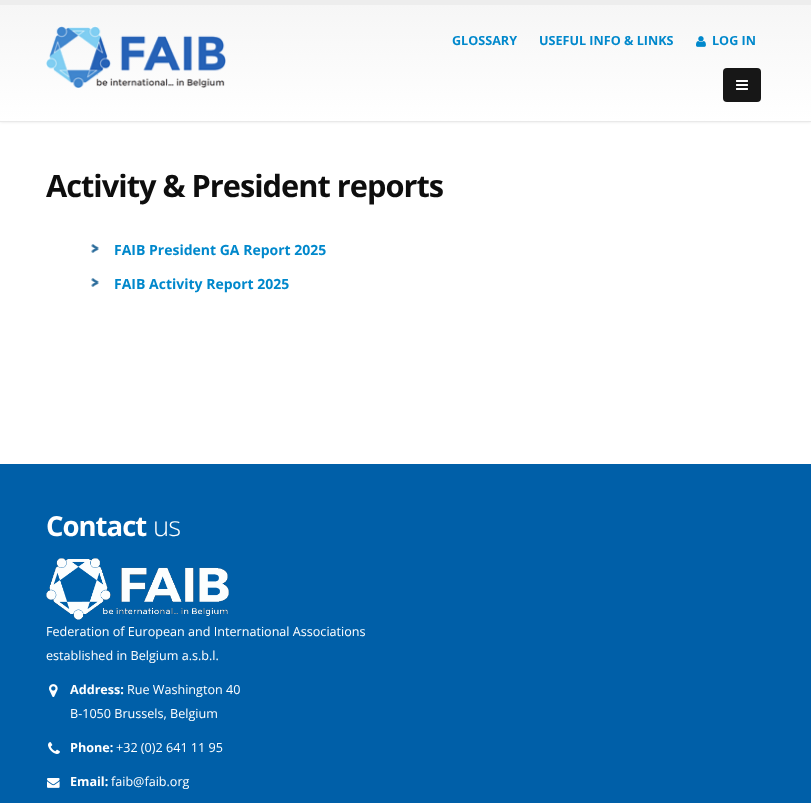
(async () => {
    const canvas = document.querySelector("canvas");
    canvas.width = 811;
    canvas.height = 803;
    const context = canvas.getContext("2d");
    context.miterLimit = 4;
    context.fontKerning = "normal";
    function write(s, x, y, font, color) {
        context.font = font;
        context.fillStyle = color;
        context.fillText(s, x, y);
    }
    function block(x, y, w, h, color) {
        context.fillStyle = color;
        context.fillRect(x, y, w, h);
    }
    function card(x, y, w, h, r, color) {
        context.fillStyle = color;
        context.beginPath();
        context.roundRect(x, y, w, h, r);
        context.fill();
    }
    async function photo(src, x, y, w, h) {
        const img = new Image();
        img.src = src;
        await img.decode();
        context.drawImage(img, x, y, w, h);
    }
    let gradient;

    block(0, 0, 811, 803, "rgb(255, 255, 255)");
    context.fillStyle = "rgba(0, 0, 0, 0.1)";
    context.filter = "blur(1.5px)";
    context.beginPath();
    context.rect(0, 0, 811, 122);
    context.fill();
    context.filter = "none";
    gradient = context.createLinearGradient(406, 5, 406, 121);
    gradient.addColorStop(0, "rgb(246, 246, 246)");
    gradient.addColorStop(1, "rgb(255, 255, 255)");
    context.fillStyle = gradient;
    context.fillRect(0, 5, 811, 116);
    block(0, 0, 811, 5, "rgb(237, 237, 237)");
    block(0, 121, 811, 1, "rgb(233, 233, 233)");
    await photo("media/1.png", 46, 26, 180, 62);
    write("GLOSSARY", 452, 45, "bold 12.6px Open Sans", "rgb(0, 136, 204)");
    write("USEFUL INFO & LINKS", 539, 45, "bold 12.6px Open Sans", "rgb(0, 136, 204)");
    await photo("media/2.png", 696, 36, 10, 11);
    write("LOG IN", 712, 45, "bold 12.6px Open Sans", "rgb(0, 136, 204)");
    card(723, 68, 38, 34, 4, "rgb(23, 23, 23)");
    await photo("media/3.png", 736, 80, 12, 10);
    context.letterSpacing = "-1px";
    write("Activity & President reports", 46, 197, "bold 30.75px Open Sans", "rgb(14, 14, 14)");
    await photo("media/4.png", 91, 244, 8, 9);
    context.letterSpacing = "0px";
    write("FAIB President GA Report 2025", 114, 255, "bold 14px Open Sans", "rgb(0, 136, 204)");
    await photo("media/4.png", 91, 278, 8, 9);
    write("FAIB Activity Report 2025", 114, 289, "bold 14px Open Sans", "rgb(0, 136, 204)");
    block(0, 464, 811, 339, "rgb(0, 95, 168)");
    context.letterSpacing = "-1px";
    write("Contact", 46, 536, "bold 27.5px Open Sans", "rgb(255, 255, 255)");
    write("us", 153, 536, "300 27.5px Open Sans", "rgb(255, 255, 255)");
    await photo("media/5.png", 46, 558, 183, 62);
    context.letterSpacing = "0px";
    write("Federation of European and International Associations", 46, 636, "12.6px Open Sans", "rgb(255, 255, 255)");
    write("established in Belgium a.s.b.l.", 46, 660, "12.6px Open Sans", "rgb(255, 255, 255)");
    await photo("media/6.png", 49, 684, 9, 13);
    write("Address:", 70, 694, "bold 12.6px Open Sans", "rgb(255, 255, 255)");
    write("Rue Washington 40", 127, 694, "12.6px Open Sans", "rgb(255, 255, 255)");
    write("B-1050 Brussels, Belgium", 70, 718, "12.6px Open Sans", "rgb(255, 255, 255)");
    await photo("media/7.png", 48, 742, 12, 12);
    write("Phone:", 70, 752, "bold 12.6px Open Sans", "rgb(255, 255, 255)");
    write("+32 (0)2 641 11 95", 116, 752, "12.6px Open Sans", "rgb(255, 255, 255)");
    await photo("media/8.png", 47, 778, 13, 10);
    write("Email:", 70, 786, "bold 12.6px Open Sans", "rgb(255, 255, 255)");
    write("faib@faib.org", 111, 786, "12.6px Open Sans", "rgb(255, 255, 255)");
})();
